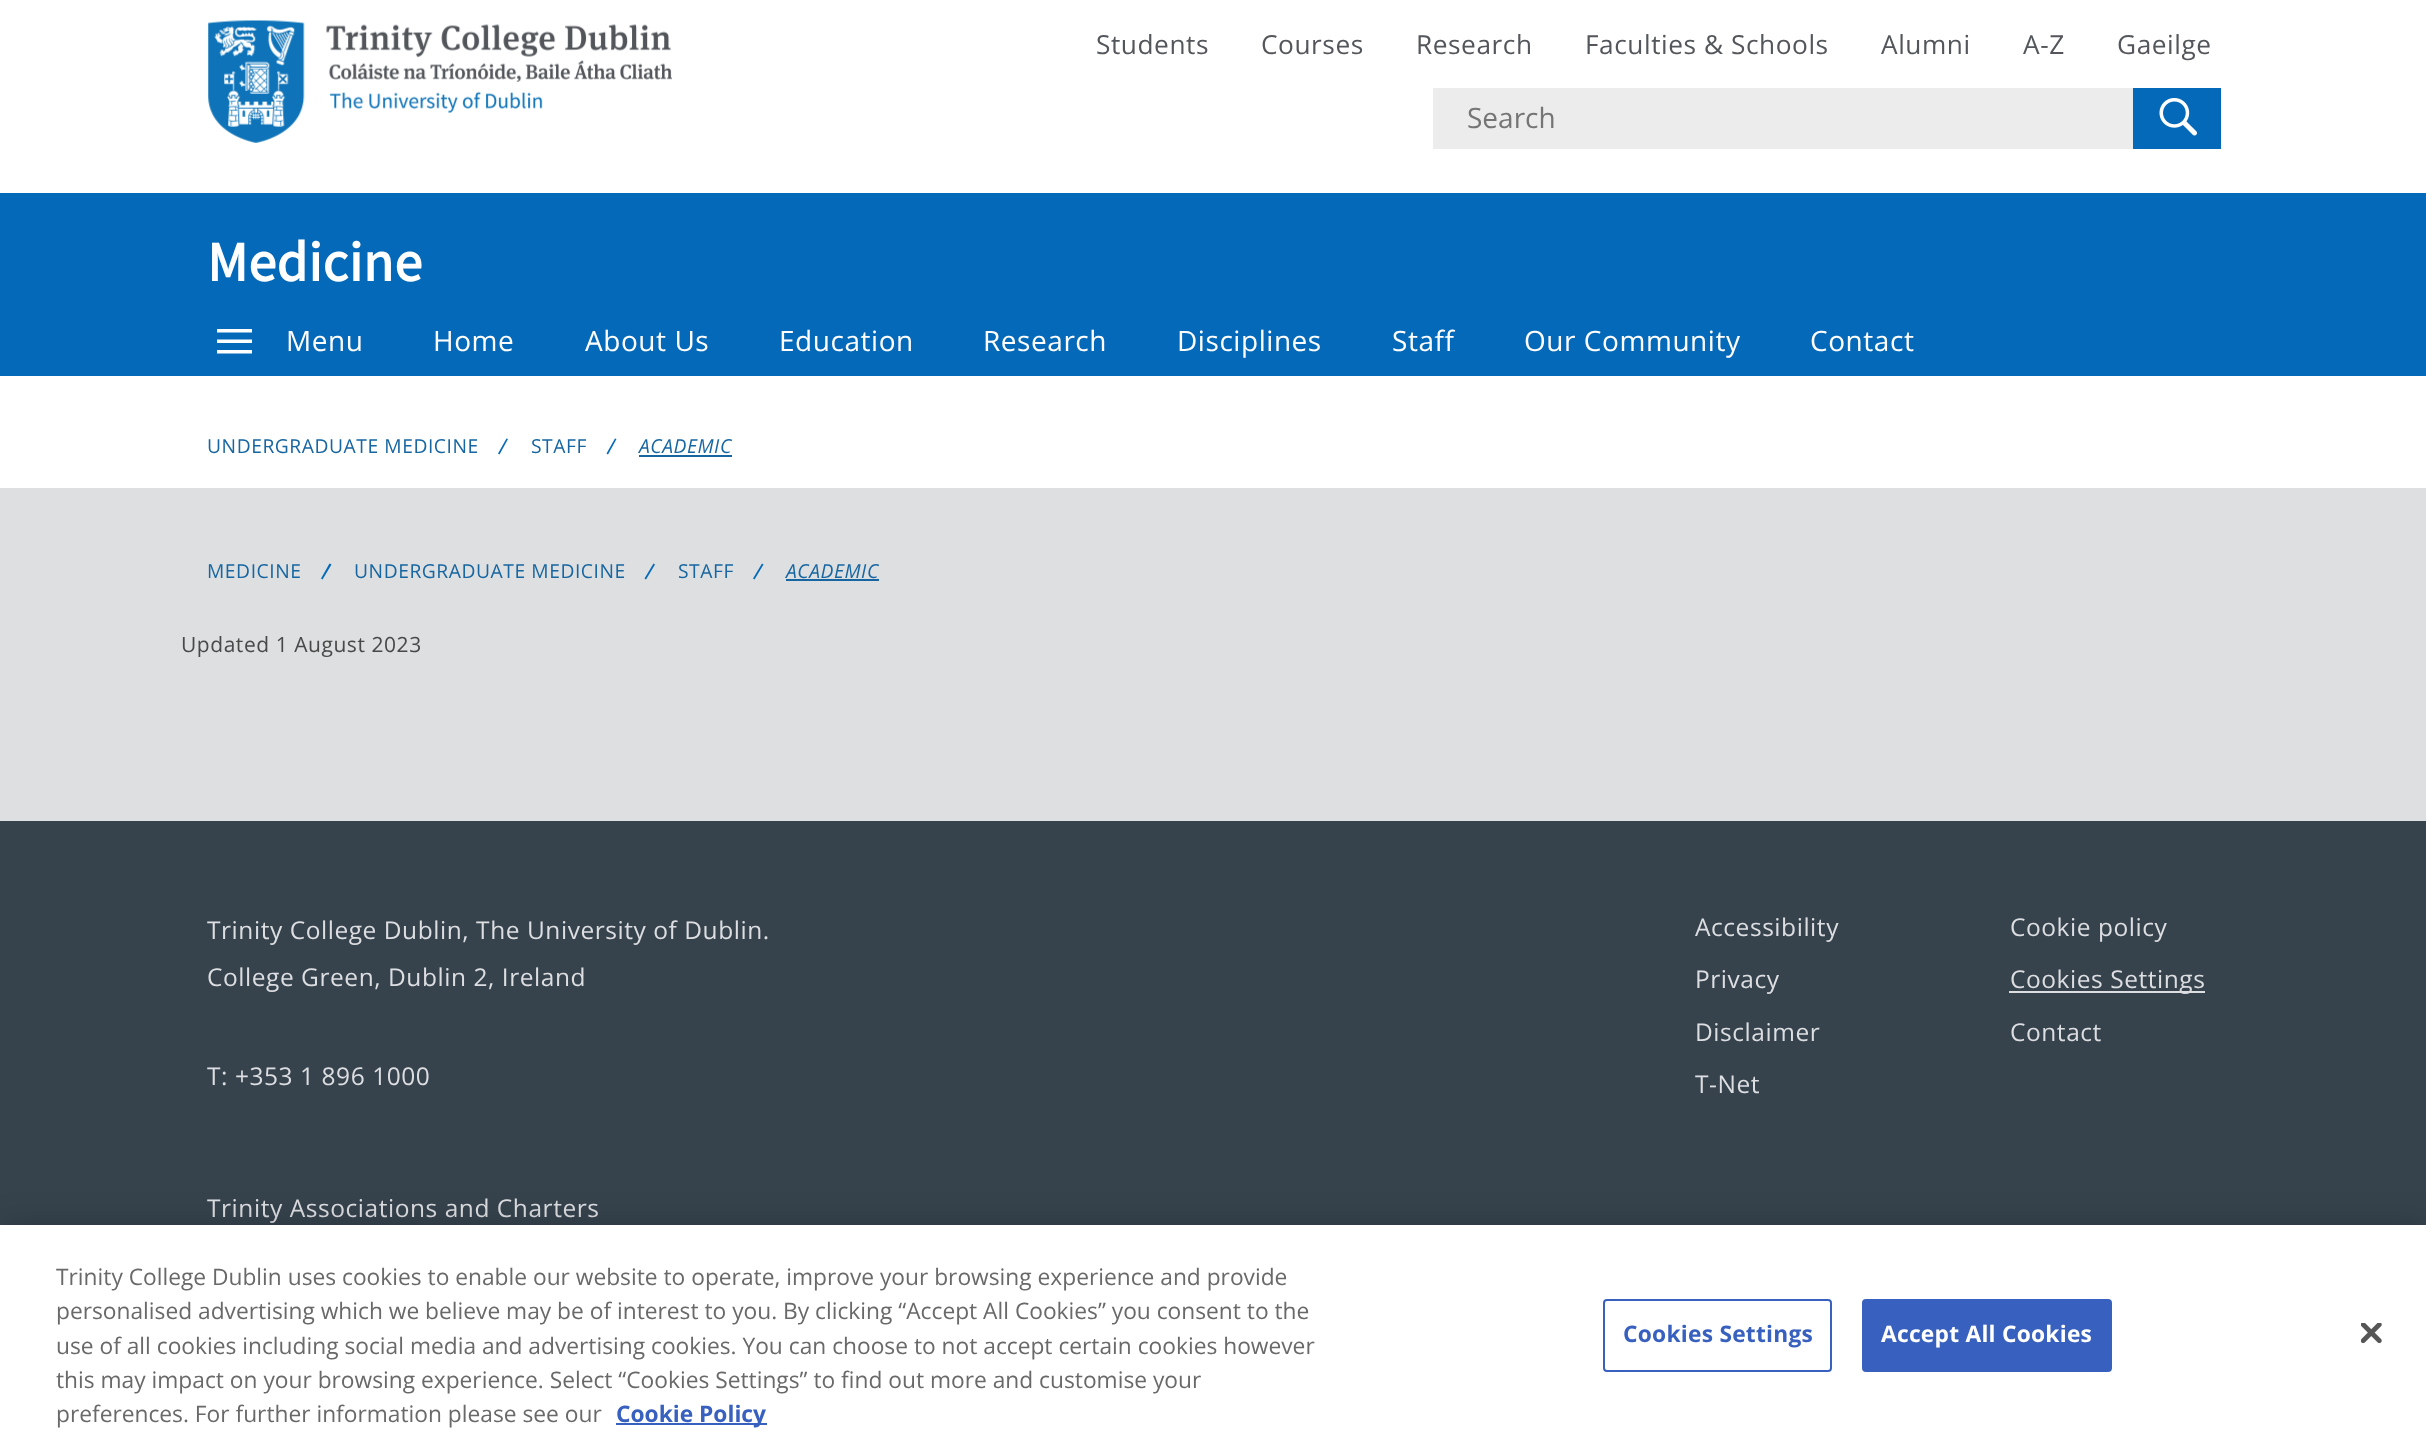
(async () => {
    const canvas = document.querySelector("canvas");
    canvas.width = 2426;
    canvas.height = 1448;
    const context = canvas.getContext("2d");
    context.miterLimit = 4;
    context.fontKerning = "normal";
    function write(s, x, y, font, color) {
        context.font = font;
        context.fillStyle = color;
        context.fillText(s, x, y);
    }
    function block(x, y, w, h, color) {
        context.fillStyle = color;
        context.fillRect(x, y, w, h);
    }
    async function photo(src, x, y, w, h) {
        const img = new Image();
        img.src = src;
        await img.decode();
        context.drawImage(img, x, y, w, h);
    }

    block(0, 0, 2426, 1448, "rgb(255, 255, 255)");
    await photo("media/1.png", 208, 20, 464, 123);
    context.letterSpacing = "0.55px";
    write("Students", 1096, 54, "26.25px Open Sans", "rgb(83, 86, 90)");
    write("Courses", 1261, 54, "26.25px Open Sans", "rgb(83, 86, 90)");
    write("Research", 1416, 54, "26.25px Open Sans", "rgb(83, 86, 90)");
    write("Faculties & Schools", 1585, 54, "26.25px Open Sans", "rgb(83, 86, 90)");
    write("Alumni", 1881, 54, "26.25px Open Sans", "rgb(83, 86, 90)");
    write("A-Z", 2023, 54, "26.25px Open Sans", "rgb(83, 86, 90)");
    write("Gaeilge", 2117, 54, "26.25px Open Sans", "rgb(83, 86, 90)");
    block(1433, 88, 700, 61, "rgb(236, 236, 236)");
    context.letterSpacing = "0px";
    write("Search", 1467, 128, "28px Open Sans", "rgb(117, 117, 117)");
    block(2133, 88, 88, 61, "rgb(5, 105, 185)");
    await photo("media/2.png", 2159, 98, 38, 38);
    block(0, 193, 2426, 183, "rgb(5, 105, 185)");
    context.letterSpacing = "0.55px";
    write("Medicine", 207, 281, "bold 56px Source Sans Pro", "rgb(255, 255, 255)");
    context.beginPath();
    context.moveTo(217, 329);
    context.lineTo(252, 329);
    context.lineTo(252, 332.5);
    context.lineTo(217, 332.5);
    context.closePath();
    context.moveTo(217, 339.5);
    context.lineTo(252, 339.5);
    context.lineTo(252, 343);
    context.lineTo(217, 343);
    context.closePath();
    context.moveTo(217, 350);
    context.lineTo(252, 350);
    context.lineTo(252, 353.5);
    context.lineTo(217, 353.5);
    context.closePath();
    context.fill();
    write("Menu", 286, 351, "28px Open Sans", "rgb(255, 255, 255)");
    write("Home", 433, 351, "28px Open Sans", "rgb(255, 255, 255)");
    write("About Us", 585, 351, "28px Open Sans", "rgb(255, 255, 255)");
    write("Education", 779, 351, "28px Open Sans", "rgb(255, 255, 255)");
    write("Research", 983, 351, "28px Open Sans", "rgb(255, 255, 255)");
    write("Disciplines", 1177, 351, "28px Open Sans", "rgb(255, 255, 255)");
    write("Staff", 1392, 351, "28px Open Sans", "rgb(255, 255, 255)");
    write("Our Community", 1524, 351, "28px Open Sans", "rgb(255, 255, 255)");
    write("Contact", 1810, 351, "28px Open Sans", "rgb(255, 255, 255)");
    write("UNDERGRADUATE MEDICINE", 207, 453, "19.25px Open Sans", "rgb(23, 102, 161)");
    context.fillStyle = "rgb(5, 105, 185)";
    context.beginPath();
    context.moveTo(506.5, 438.5);
    context.lineTo(508, 439);
    context.lineTo(499.5, 454.5);
    context.lineTo(498, 453.5);
    context.closePath();
    context.fill();
    write("STAFF", 531, 453, "19.25px Open Sans", "rgb(23, 102, 161)");
    context.fillStyle = "rgb(5, 105, 185)";
    context.beginPath();
    context.moveTo(615, 438.5);
    context.lineTo(616.5, 439);
    context.lineTo(608, 454.5);
    context.lineTo(606.5, 453.5);
    context.closePath();
    context.fill();
    write("ACADEMIC", 639, 453, "italic 19.25px Open Sans", "rgb(23, 102, 161)");
    block(639, 455, 93, 2, "rgb(23, 102, 161)");
    block(0, 488, 2426, 333, "rgb(221, 223, 225)");
    write("MEDICINE", 207, 578, "19.25px Open Sans", "rgb(23, 102, 161)");
    context.fillStyle = "rgb(5, 105, 185)";
    context.beginPath();
    context.moveTo(329.5, 563.5);
    context.lineTo(331.5, 564.5);
    context.lineTo(322.5, 579.5);
    context.lineTo(321, 578.5);
    context.closePath();
    context.fill();
    write("UNDERGRADUATE MEDICINE", 354, 578, "19.25px Open Sans", "rgb(23, 102, 161)");
    context.fillStyle = "rgb(5, 105, 185)";
    context.beginPath();
    context.moveTo(653.5, 563.5);
    context.lineTo(655, 564.5);
    context.lineTo(646, 579.5);
    context.lineTo(644.5, 578.5);
    context.closePath();
    context.fill();
    write("STAFF", 678, 578, "19.25px Open Sans", "rgb(23, 102, 161)");
    context.fillStyle = "rgb(5, 105, 185)";
    context.beginPath();
    context.moveTo(762, 563.5);
    context.lineTo(763.5, 564.5);
    context.lineTo(754.5, 579.5);
    context.lineTo(753, 578.5);
    context.closePath();
    context.fill();
    write("ACADEMIC", 786, 578, "italic 19.25px Open Sans", "rgb(23, 102, 161)");
    block(786, 579, 93, 2, "rgb(23, 102, 161)");
    write("Updated 1 August 2023", 181, 652, "21px Open Sans", "rgb(73, 73, 73)");
    block(0, 821, 2426, 404, "rgb(54, 67, 77)");
    write("Trinity College Dublin, The University of Dublin.", 207, 939, "24.5px Open Sans", "rgb(221, 222, 226)");
    write("College Green, Dublin 2, Ireland", 207, 986, "24.5px Open Sans", "rgb(221, 222, 226)");
    write("T: +353 1 896 1000", 207, 1085, "24.5px Open Sans", "rgb(221, 222, 226)");
    write("Trinity Associations and Charters", 207, 1217, "24.5px Open Sans", "rgb(221, 222, 226)");
    write("Accessibility", 1695, 936, "24.5px Open Sans", "rgb(221, 222, 226)");
    write("Cookie policy", 2010, 936, "24.5px Open Sans", "rgb(221, 222, 226)");
    write("Privacy", 1695, 988, "24.5px Open Sans", "rgb(221, 222, 226)");
    block(2009, 991, 196, 2, "rgb(221, 222, 226)");
    write("Cookies Settings", 2010, 988, "24.5px Open Sans", "rgb(221, 222, 226)");
    write("Disclaimer", 1695, 1041, "24.5px Open Sans", "rgb(221, 222, 226)");
    write("Contact", 2010, 1041, "24.5px Open Sans", "rgb(221, 222, 226)");
    write("T-Net", 1695, 1093, "24.5px Open Sans", "rgb(221, 222, 226)");
    context.fillStyle = "rgba(0, 0, 0, 0.2)";
    context.filter = "blur(16px)";
    context.beginPath();
    context.rect(0, 1225, 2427, 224);
    context.fill();
    context.filter = "none";
    block(0, 1225, 2426, 223, "rgb(255, 255, 255)");
    context.letterSpacing = "0px";
    write("Trinity College Dublin uses cookies to enable our website to operate, improve your browsing experience and provide", 56, 1285, "22.75px Open Sans", "rgb(105, 105, 105)");
    write("personalised advertising which we believe may be of interest to you. By clicking “Accept All Cookies” you consent to the", 56, 1319, "22.75px Open Sans", "rgb(105, 105, 105)");
    write("use of all cookies including social media and advertising cookies. You can choose to not accept certain cookies however", 56, 1354, "22.75px Open Sans", "rgb(105, 105, 105)");
    write("this may impact on your browsing experience. Select “Cookies Settings” to find out more and customise your", 56, 1388, "22.75px Open Sans", "rgb(105, 105, 105)");
    write("preferences. For further information please see our", 56, 1422, "22.75px Open Sans", "rgb(105, 105, 105)");
    block(616, 1423, 151, 2, "rgb(56, 96, 190)");
    write("Cookie Policy", 616, 1422, "bold 22.75px Open Sans", "rgb(56, 96, 190)");
    context.beginPath();
    context.roundRect(1604, 1300, 227, 71, 3);
    context.strokeStyle = "rgb(56, 96, 190)";
    context.lineWidth = 2;
    context.stroke();
    context.letterSpacing = "0.25px";
    write("Cookies Settings", 1623, 1342, "bold 22.75px Open Sans", "rgb(56, 96, 190)");
    context.beginPath();
    context.roundRect(1863, 1300, 248, 71, 3);
    context.fill();
    context.stroke();
    write("Accept All Cookies", 1881, 1342, "bold 22.75px Open Sans", "rgb(255, 255, 255)");
    await photo("media/3.png", 2361, 1323, 21, 21);
})();
